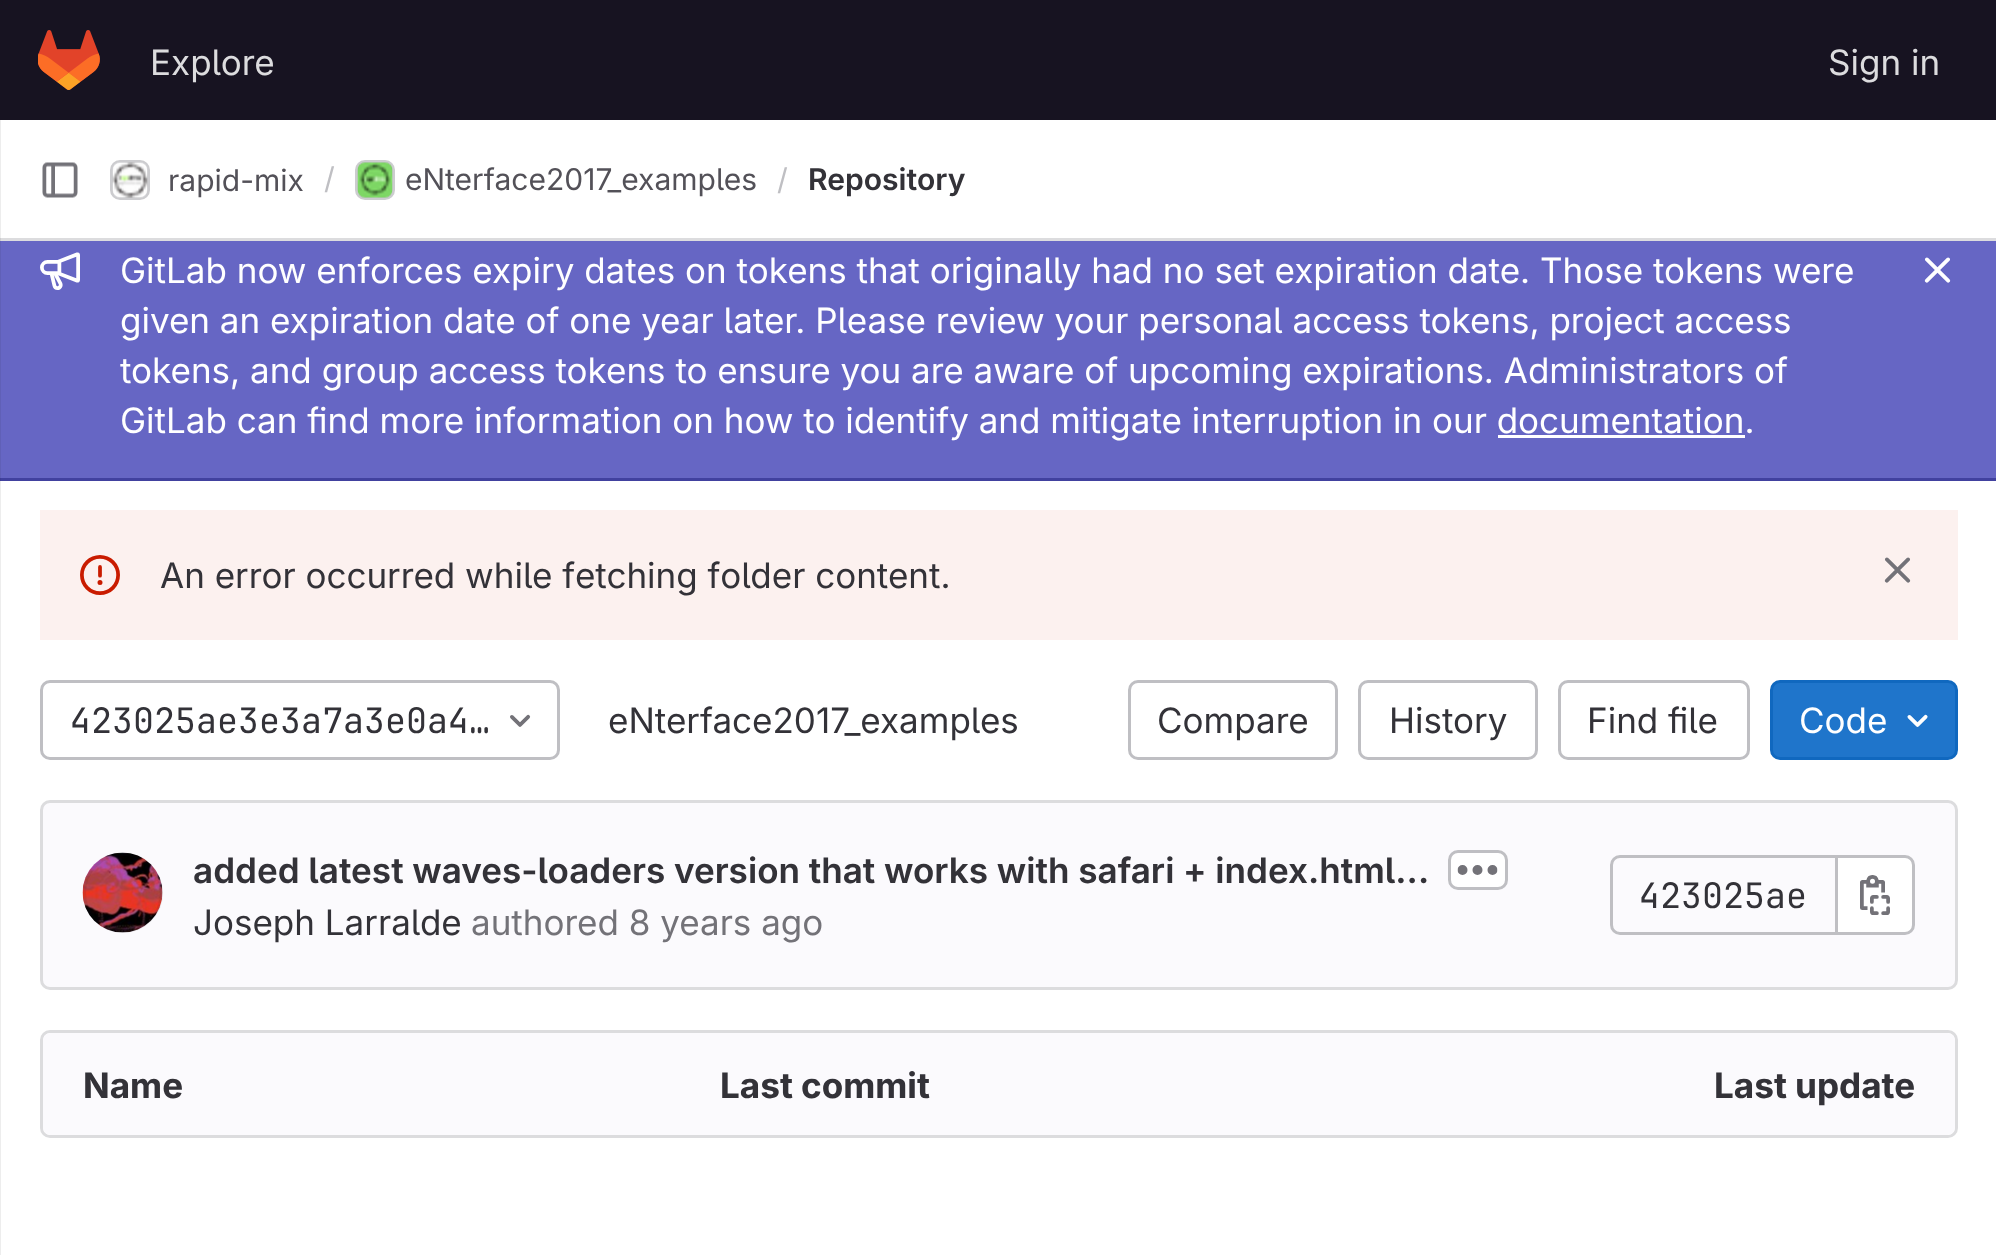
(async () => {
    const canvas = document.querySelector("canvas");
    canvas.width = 1996;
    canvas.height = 1255;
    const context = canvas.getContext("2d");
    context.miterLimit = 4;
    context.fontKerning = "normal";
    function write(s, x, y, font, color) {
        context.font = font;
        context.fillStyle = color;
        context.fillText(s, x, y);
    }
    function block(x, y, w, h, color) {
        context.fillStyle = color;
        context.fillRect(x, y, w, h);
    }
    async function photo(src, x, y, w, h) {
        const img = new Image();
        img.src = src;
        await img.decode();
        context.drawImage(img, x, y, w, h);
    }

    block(0, 0, 1996, 1255, "rgb(255, 255, 255)");
    block(0, 481, 1, 774, "rgb(237, 237, 237)");
    block(0, 0, 1996, 120, "rgb(23, 19, 33)");
    await photo("media/1.png", 38, 30, 62, 60);
    write("Explore", 150, 75, "35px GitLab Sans", "rgb(220, 220, 222)");
    write("Sign in", 1828, 75, "35px GitLab Sans", "rgb(220, 220, 222)");
    block(0, 120, 1, 120, "rgb(237, 237, 237)");
    block(0, 238, 1996, 3, "rgb(220, 220, 222)");
    block(0, 238, 1, 3, "rgb(205, 205, 207)");
    await photo("media/2.png", 42, 162, 36, 36);
    context.beginPath();
    context.roundRect(111.5, 161.5, 37, 37, 8.5);
    context.strokeStyle = "rgb(220, 220, 222)";
    context.lineWidth = 3;
    context.stroke();
    await photo("media/3.png", 112, 162, 36, 36);
    context.beginPath();
    context.roundRect(111.5, 161.5, 37, 37, 8.5);
    context.strokeStyle = "rgba(31, 30, 36, 0.08)";
    context.stroke();
    write("rapid-mix", 168, 191, "30px GitLab Sans", "rgb(83, 81, 88)");
    write("/", 324, 189, "30px GitLab Sans", "rgb(191, 191, 195)");
    context.beginPath();
    context.roundRect(356.5, 161.5, 37, 37, 8.5);
    context.strokeStyle = "rgb(220, 220, 222)";
    context.stroke();
    await photo("media/4.png", 357, 162, 36, 36);
    context.beginPath();
    context.roundRect(356.5, 161.5, 37, 37, 8.5);
    context.strokeStyle = "rgba(31, 30, 36, 0.08)";
    context.stroke();
    write("eNterface2017_examples", 405, 190, "30px GitLab Sans", "rgb(83, 81, 88)");
    write("/", 777, 190, "30px GitLab Sans", "rgb(191, 191, 195)");
    write("Repository", 808, 190, "600 30px GitLab Sans", "rgb(51, 50, 56)");
    block(1, 241, 1995, 237, "rgb(102, 102, 196)");
    block(0, 241, 1, 239, "rgb(96, 96, 183)");
    block(0, 478, 1996, 3, "rgb(65, 65, 159)");
    block(0, 478, 1, 3, "rgb(62, 62, 149)");
    await photo("media/5.png", 40, 252, 40, 38);
    write("GitLab now enforces expiry dates on tokens that originally had no set expiration date. Those tokens were", 120, 283, "35px GitLab Sans", "rgb(255, 255, 255)");
    write("given an expiration date of one year later. Please review your personal access tokens, project access", 120, 333, "35px GitLab Sans", "rgb(255, 255, 255)");
    write("tokens, and group access tokens to ensure you are aware of upcoming expirations. Administrators of", 120, 383, "35px GitLab Sans", "rgb(255, 255, 255)");
    write("GitLab can find more information on how to identify and mitigate interruption in our documentation.", 120, 433, "35px GitLab Sans", "rgb(255, 255, 255)");
    block(1498, 435, 247, 3, "rgb(255, 255, 255)");
    await photo("media/6.png", 1924, 257, 27, 26);
    block(40, 510, 1918, 130, "rgb(252, 241, 239)");
    await photo("media/7.png", 80, 555, 40, 40);
    write("An error occurred while fetching folder content.", 160, 588, "35px GitLab Sans", "rgb(51, 50, 56)");
    await photo("media/8.png", 1884, 557, 27, 26);
    context.beginPath();
    context.roundRect(41.5, 681.5, 517, 77, 8.5);
    context.strokeStyle = "rgb(191, 191, 195)";
    context.stroke();
    write("423025ae3e3a7a3e0a4…", 70, 733, "35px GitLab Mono", "rgb(51, 50, 56)");
    await photo("media/9.png", 510, 714, 21, 13);
    write("eNterface2017_examples", 608, 733, "35px GitLab Sans", "rgb(51, 50, 56)");
    context.beginPath();
    context.roundRect(1129.5, 681.5, 207, 77, 8.5);
    context.stroke();
    write("Compare", 1157, 733, "35px GitLab Sans", "rgb(51, 50, 56)");
    context.beginPath();
    context.roundRect(1359.5, 681.5, 177, 77, 8.5);
    context.stroke();
    write("History", 1389, 733, "35px GitLab Sans", "rgb(51, 50, 56)");
    context.beginPath();
    context.roundRect(1559.5, 681.5, 189, 77, 8.5);
    context.stroke();
    write("Find file", 1587, 733, "35px GitLab Sans", "rgb(51, 50, 56)");
    context.fillStyle = "rgb(31, 117, 203)";
    context.beginPath();
    context.roundRect(1771.5, 681.5, 185, 77, 8.5);
    context.fill();
    context.strokeStyle = "rgb(16, 104, 191)";
    context.stroke();
    write("Code", 1799, 733, "35px GitLab Sans", "rgb(255, 255, 255)");
    await photo("media/10.png", 1907, 714, 21, 13);
    context.fillStyle = "rgb(251, 250, 253)";
    context.beginPath();
    context.roundRect(41.5, 801.5, 1915, 187, 8.5);
    context.fill();
    context.strokeStyle = "rgb(220, 220, 222)";
    context.stroke();
    await photo("media/11.png", 82, 852, 81, 81);
    context.beginPath();
    context.arc(123, 893, 38.5, 0, Math.PI * 2);
    context.strokeStyle = "rgba(31, 30, 36, 0.08)";
    context.stroke();
    write("added latest waves-loaders version that works with safari + index.html...", 193, 883, "600 35px GitLab Sans", "rgb(51, 50, 56)");
    context.fillStyle = "rgb(255, 255, 255)";
    context.beginPath();
    context.roundRect(1449.5, 851.5, 57, 37, 8.5);
    context.fill();
    context.strokeStyle = "rgb(191, 191, 195)";
    context.stroke();
    await photo("media/12.png", 1457, 865, 41, 10);
    write("Joseph Larralde", 193, 935, "35px GitLab Sans", "rgb(51, 50, 56)");
    write("authored 8 years ago", 471, 935, "35px GitLab Sans", "rgb(115, 114, 120)");
    context.beginPath();
    context.roundRect(1611.5, 856.5, 225, 77, [8.5, 0, 0, 8.5]);
    context.stroke();
    write("423025ae", 1639, 908, "35px GitLab Mono", "rgb(51, 50, 56)");
    context.fillStyle = "rgb(255, 255, 255)";
    context.beginPath();
    context.roundRect(1836.5, 856.5, 77, 77, [0, 8.5, 8.5, 0]);
    context.fill();
    context.stroke();
    await photo("media/13.png", 1860, 875, 30, 40);
    context.beginPath();
    context.roundRect(41.5, 1031.5, 1915, 105, 8.5);
    context.strokeStyle = "rgb(220, 220, 222)";
    context.stroke();
    context.fillStyle = "rgb(251, 250, 253)";
    context.beginPath();
    context.roundRect(43, 1033, 637, 102, [8, 0, 0, 8]);
    context.fill();
    write("Name", 83, 1098, "bold 35px GitLab Sans", "rgb(51, 50, 56)");
    block(680, 1033, 638, 102, "rgb(251, 250, 253)");
    write("Last commit", 720, 1098, "bold 35px GitLab Sans", "rgb(51, 50, 56)");
    context.fillStyle = "rgb(251, 250, 253)";
    context.beginPath();
    context.roundRect(1318, 1033, 637, 102, [0, 8, 8, 0]);
    context.fill();
    write("Last update", 1714, 1098, "bold 35px GitLab Sans", "rgb(51, 50, 56)");
})();
